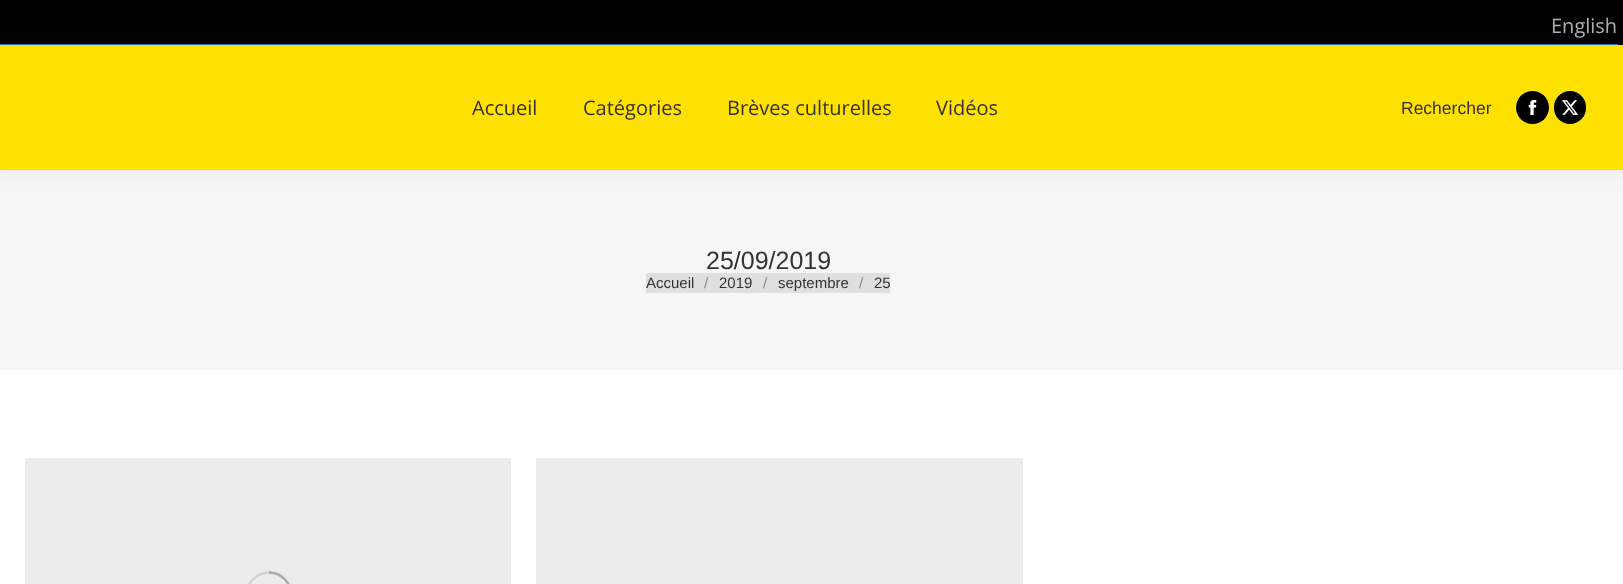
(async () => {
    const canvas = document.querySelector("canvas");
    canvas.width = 1623;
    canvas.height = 584;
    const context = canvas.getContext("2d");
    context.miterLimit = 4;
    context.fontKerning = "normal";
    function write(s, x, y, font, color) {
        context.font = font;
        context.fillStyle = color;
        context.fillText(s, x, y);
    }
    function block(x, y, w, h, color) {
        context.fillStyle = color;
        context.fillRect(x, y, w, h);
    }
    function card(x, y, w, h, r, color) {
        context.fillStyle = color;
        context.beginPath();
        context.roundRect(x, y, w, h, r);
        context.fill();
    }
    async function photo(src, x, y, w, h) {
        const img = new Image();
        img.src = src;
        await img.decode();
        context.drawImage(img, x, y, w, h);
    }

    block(0, 0, 1623, 584, "rgb(255, 255, 255)");
    block(0, 170, 1623, 200, "rgb(246, 246, 246)");
    context.fillStyle = "rgba(0, 0, 0, 0.07)";
    context.filter = "blur(9.5px)";
    context.beginPath();
    context.rect(-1, -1, 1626, 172);
    context.fill();
    context.filter = "none";
    block(0, 45, 1623, 125, "rgb(255, 225, 0)");
    block(0, 0, 1623, 45, "rgb(0, 0, 0)");
    write("English", 1551, 33, "20px Open Sans", "rgb(174, 175, 181)");
    block(0, 44, 1618, 1, "rgb(30, 115, 190)");
    write("Accueil", 472, 115, "20px Open Sans", "rgb(51, 51, 51)");
    write("Catégories", 583, 115, "20px Open Sans", "rgb(51, 51, 51)");
    write("Brèves culturelles", 727, 115, "20px Open Sans", "rgb(51, 51, 51)");
    write("Vidéos", 936, 115, "20px Open Sans", "rgb(51, 51, 51)");
    write("Rechercher", 1401, 114, "17.5px Liberation Sans", "rgb(51, 51, 51)");
    context.fillStyle = "rgb(0, 0, 0)";
    context.beginPath();
    context.arc(1532.5, 107.5, 16.5, 0, Math.PI * 2);
    context.fill();
    await photo("media/1.png", 1528, 100, 9, 15);
    card(1554, 91, 32, 33, 16, "rgb(0, 0, 0)");
    await photo("media/2.png", 1562, 100, 16, 15);
    write("25/09/2019", 706, 269, "25px Liberation Sans", "rgb(51, 51, 51)");
    block(646, 273, 244, 20, "rgb(223, 223, 223)");
    write("Accueil", 646, 288, "15px Liberation Sans", "rgb(51, 51, 51)");
    write("/", 704, 288, "15px Liberation Sans", "rgb(137, 137, 137)");
    write("2019", 719, 288, "15px Liberation Sans", "rgb(51, 51, 51)");
    write("/", 763, 288, "15px Liberation Sans", "rgb(137, 137, 137)");
    write("septembre", 778, 288, "15px Liberation Sans", "rgb(51, 51, 51)");
    write("/", 859, 288, "15px Liberation Sans", "rgb(137, 137, 137)");
    write("25", 874, 288, "15px Liberation Sans", "rgb(51, 51, 51)");
    block(25, 458, 486, 126, "rgb(236, 236, 236)");
    context.beginPath();
    context.arc(269, 595, 22.5, 0, Math.PI * 2);
    context.strokeStyle = "rgb(211, 211, 211)";
    context.lineWidth = 2.5;
    context.stroke();
    context.beginPath();
    context.moveTo(291, 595);
    context.bezierCurveTo(291, 582.5, 281, 572.5, 269, 572.5);
    context.strokeStyle = "rgba(51, 51, 51, 0.25)";
    context.stroke();
    block(536, 458, 487, 126, "rgb(236, 236, 236)");
})();
